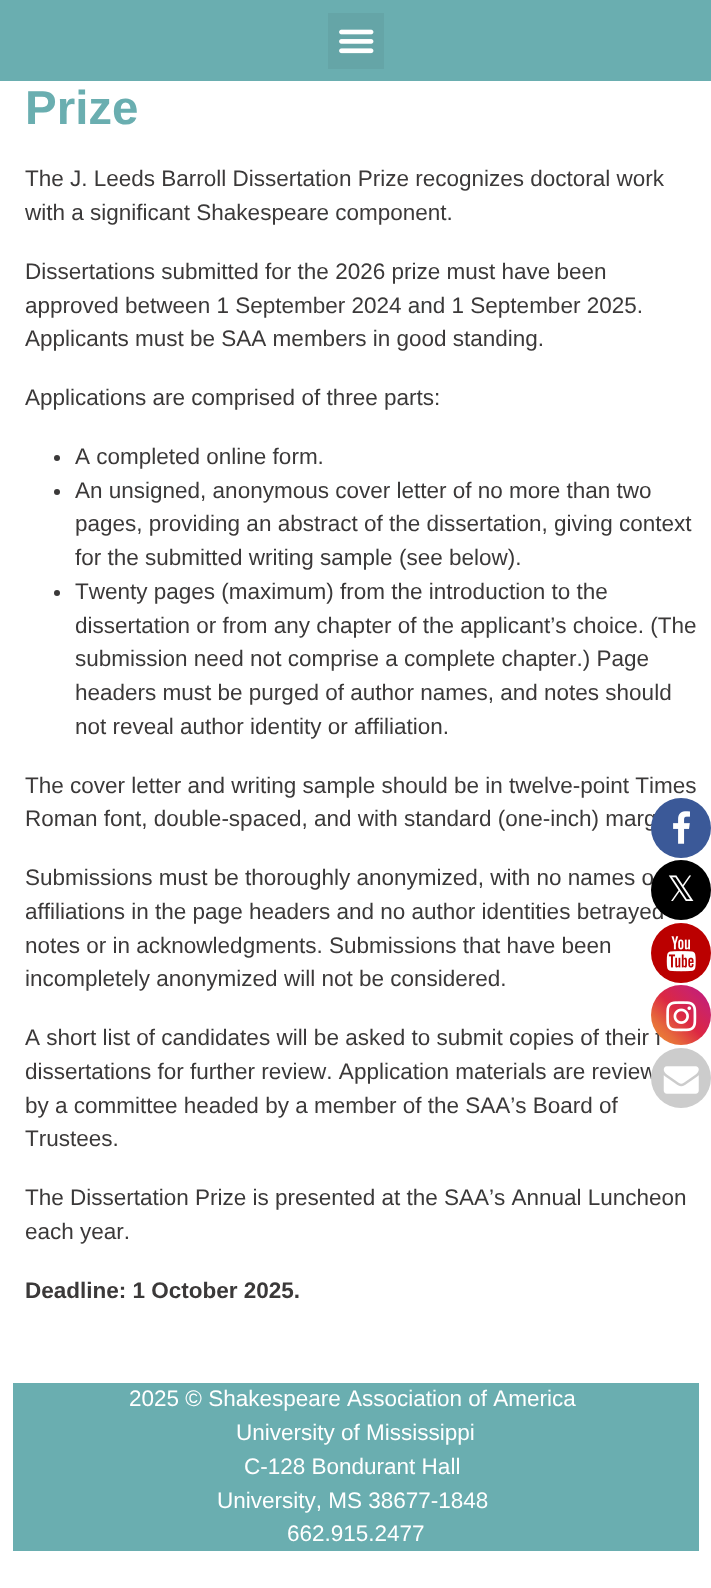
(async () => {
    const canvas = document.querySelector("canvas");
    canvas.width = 711;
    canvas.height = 1588;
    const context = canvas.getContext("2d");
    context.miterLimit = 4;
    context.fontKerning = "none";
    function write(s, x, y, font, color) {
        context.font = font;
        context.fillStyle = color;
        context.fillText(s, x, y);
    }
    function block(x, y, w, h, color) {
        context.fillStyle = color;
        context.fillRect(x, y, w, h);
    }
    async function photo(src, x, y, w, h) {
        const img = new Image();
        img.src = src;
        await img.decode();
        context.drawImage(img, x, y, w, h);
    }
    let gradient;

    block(0, 0, 711, 1588, "rgb(255, 255, 255)");
    block(0, 0, 711, 81, "rgb(106, 174, 176)");
    block(328, 13, 56, 56, "rgb(101, 165, 167)");
    await photo("media/1.png", 339, 29, 35, 25);
    write("Prize", 25, 124, "bold 47.5px Liberation Sans", "rgb(106, 174, 176)");
    write("The J. Leeds Barroll Dissertation Prize recognizes doctoral work", 25, 186, "22.5px Liberation Sans", "rgb(59, 57, 57)");
    write("with a significant Shakespeare component.", 25, 220, "22.5px Liberation Sans", "rgb(59, 57, 57)");
    write("Dissertations submitted for the 2026 prize must have been", 25, 279, "22.5px Liberation Sans", "rgb(59, 57, 57)");
    write("approved between 1 September 2024 and 1 September 2025.", 25, 313, "22.5px Liberation Sans", "rgb(59, 57, 57)");
    write("Applicants must be SAA members in good standing.", 25, 346, "22.5px Liberation Sans", "rgb(59, 57, 57)");
    write("Applications are comprised of three parts:", 25, 405, "22.5px Liberation Sans", "rgb(59, 57, 57)");
    context.beginPath();
    context.arc(57, 458, 3, 0, Math.PI * 2);
    context.fill();
    write("A completed online form.", 75, 464, "22.5px Liberation Sans", "rgb(59, 57, 57)");
    context.beginPath();
    context.arc(57, 492, 3, 0, Math.PI * 2);
    context.fill();
    write("An unsigned, anonymous cover letter of no more than two", 75, 498, "22.5px Liberation Sans", "rgb(59, 57, 57)");
    write("pages, providing an abstract of the dissertation, giving context", 75, 531, "22.5px Liberation Sans", "rgb(59, 57, 57)");
    write("for the submitted writing sample (see below).", 75, 565, "22.5px Liberation Sans", "rgb(59, 57, 57)");
    context.beginPath();
    context.arc(57, 593, 3, 0, Math.PI * 2);
    context.fill();
    write("Twenty pages (maximum) from the introduction to the", 75, 599, "22.5px Liberation Sans", "rgb(59, 57, 57)");
    write("dissertation or from any chapter of the applicant’s choice. (The", 75, 633, "22.5px Liberation Sans", "rgb(59, 57, 57)");
    write("submission need not comprise a complete chapter.) Page", 75, 666, "22.5px Liberation Sans", "rgb(59, 57, 57)");
    write("headers must be purged of author names, and notes should", 75, 700, "22.5px Liberation Sans", "rgb(59, 57, 57)");
    write("not reveal author identity or affiliation.", 75, 734, "22.5px Liberation Sans", "rgb(59, 57, 57)");
    write("The cover letter and writing sample should be in twelve-point Times", 25, 793, "22.5px Liberation Sans", "rgb(59, 57, 57)");
    write("Roman font, double-spaced, and with standard (one-inch) marg", 25, 826, "22.5px Liberation Sans", "rgb(59, 57, 57)");
    write("Submissions must be thoroughly anonymized, with no names o", 25, 885, "22.5px Liberation Sans", "rgb(59, 57, 57)");
    write("affiliations in the page headers and no author identities betrayed", 25, 919, "22.5px Liberation Sans", "rgb(59, 57, 57)");
    write("notes or in acknowledgments. Submissions that have been", 25, 953, "22.5px Liberation Sans", "rgb(59, 57, 57)");
    write("incompletely anonymized will not be considered.", 25, 986, "22.5px Liberation Sans", "rgb(59, 57, 57)");
    write("A short list of candidates will be asked to submit copies of their f", 25, 1045, "22.5px Liberation Sans", "rgb(59, 57, 57)");
    write("dissertations for further review. Application materials are review", 25, 1079, "22.5px Liberation Sans", "rgb(59, 57, 57)");
    write("by a committee headed by a member of the SAA’s Board of", 25, 1113, "22.5px Liberation Sans", "rgb(59, 57, 57)");
    write("Trustees.", 25, 1146, "22.5px Liberation Sans", "rgb(59, 57, 57)");
    write("The Dissertation Prize is presented at the SAA’s Annual Luncheon", 25, 1205, "22.5px Liberation Sans", "rgb(59, 57, 57)");
    write("each year.", 25, 1239, "22.5px Liberation Sans", "rgb(59, 57, 57)");
    write("Deadline: 1 October 2025.", 25, 1298, "bold 22.5px Liberation Sans", "rgb(59, 57, 57)");
    context.fillStyle = "rgb(59, 89, 152)";
    context.beginPath();
    context.arc(681, 828, 30, 0, Math.PI * 2);
    context.fill();
    await photo("media/2.png", 673, 811, 17, 33);
    context.fillStyle = "rgb(0, 0, 0)";
    context.beginPath();
    context.arc(681, 890, 30, 0, Math.PI * 2);
    context.fill();
    write("𝕏", 667, 901, "35px DejaVu Sans", "rgb(255, 255, 255)");
    context.fillStyle = "rgb(187, 0, 0)";
    context.beginPath();
    context.arc(681, 953, 30, 0, Math.PI * 2);
    context.fill();
    await photo("media/3.png", 666, 936, 30, 36);
    gradient = context.createLinearGradient(651, 1045, 711, 985);
    gradient.addColorStop(0, "rgb(240, 148, 51)");
    gradient.addColorStop(0.25, "rgb(230, 104, 60)");
    gradient.addColorStop(0.5, "rgb(220, 39, 67)");
    gradient.addColorStop(0.75, "rgb(204, 35, 102)");
    gradient.addColorStop(1, "rgb(188, 24, 136)");
    context.fillStyle = gradient;
    context.beginPath();
    context.arc(681, 1015, 30, 0, Math.PI * 2);
    context.fill();
    await photo("media/4.png", 666, 1001, 31, 31);
    context.fillStyle = "rgb(204, 204, 204)";
    context.beginPath();
    context.arc(681, 1078, 30, 0, Math.PI * 2);
    context.fill();
    await photo("media/5.png", 663, 1066, 36, 28);
    block(13, 1383, 686, 168, "rgb(106, 174, 176)");
    write("2025 © Shakespeare Association of America", 129, 1406, "22.5px Liberation Sans", "rgb(255, 255, 255)");
    write("University of Mississippi", 236, 1440, "22.5px Liberation Sans", "rgb(255, 255, 255)");
    write("C-128 Bondurant Hall", 244, 1474, "22.5px Liberation Sans", "rgb(255, 255, 255)");
    write("University, MS 38677-1848", 217, 1508, "22.5px Liberation Sans", "rgb(255, 255, 255)");
    write("662.915.2477", 287, 1541, "22.5px Liberation Sans", "rgb(255, 255, 255)");
})();
